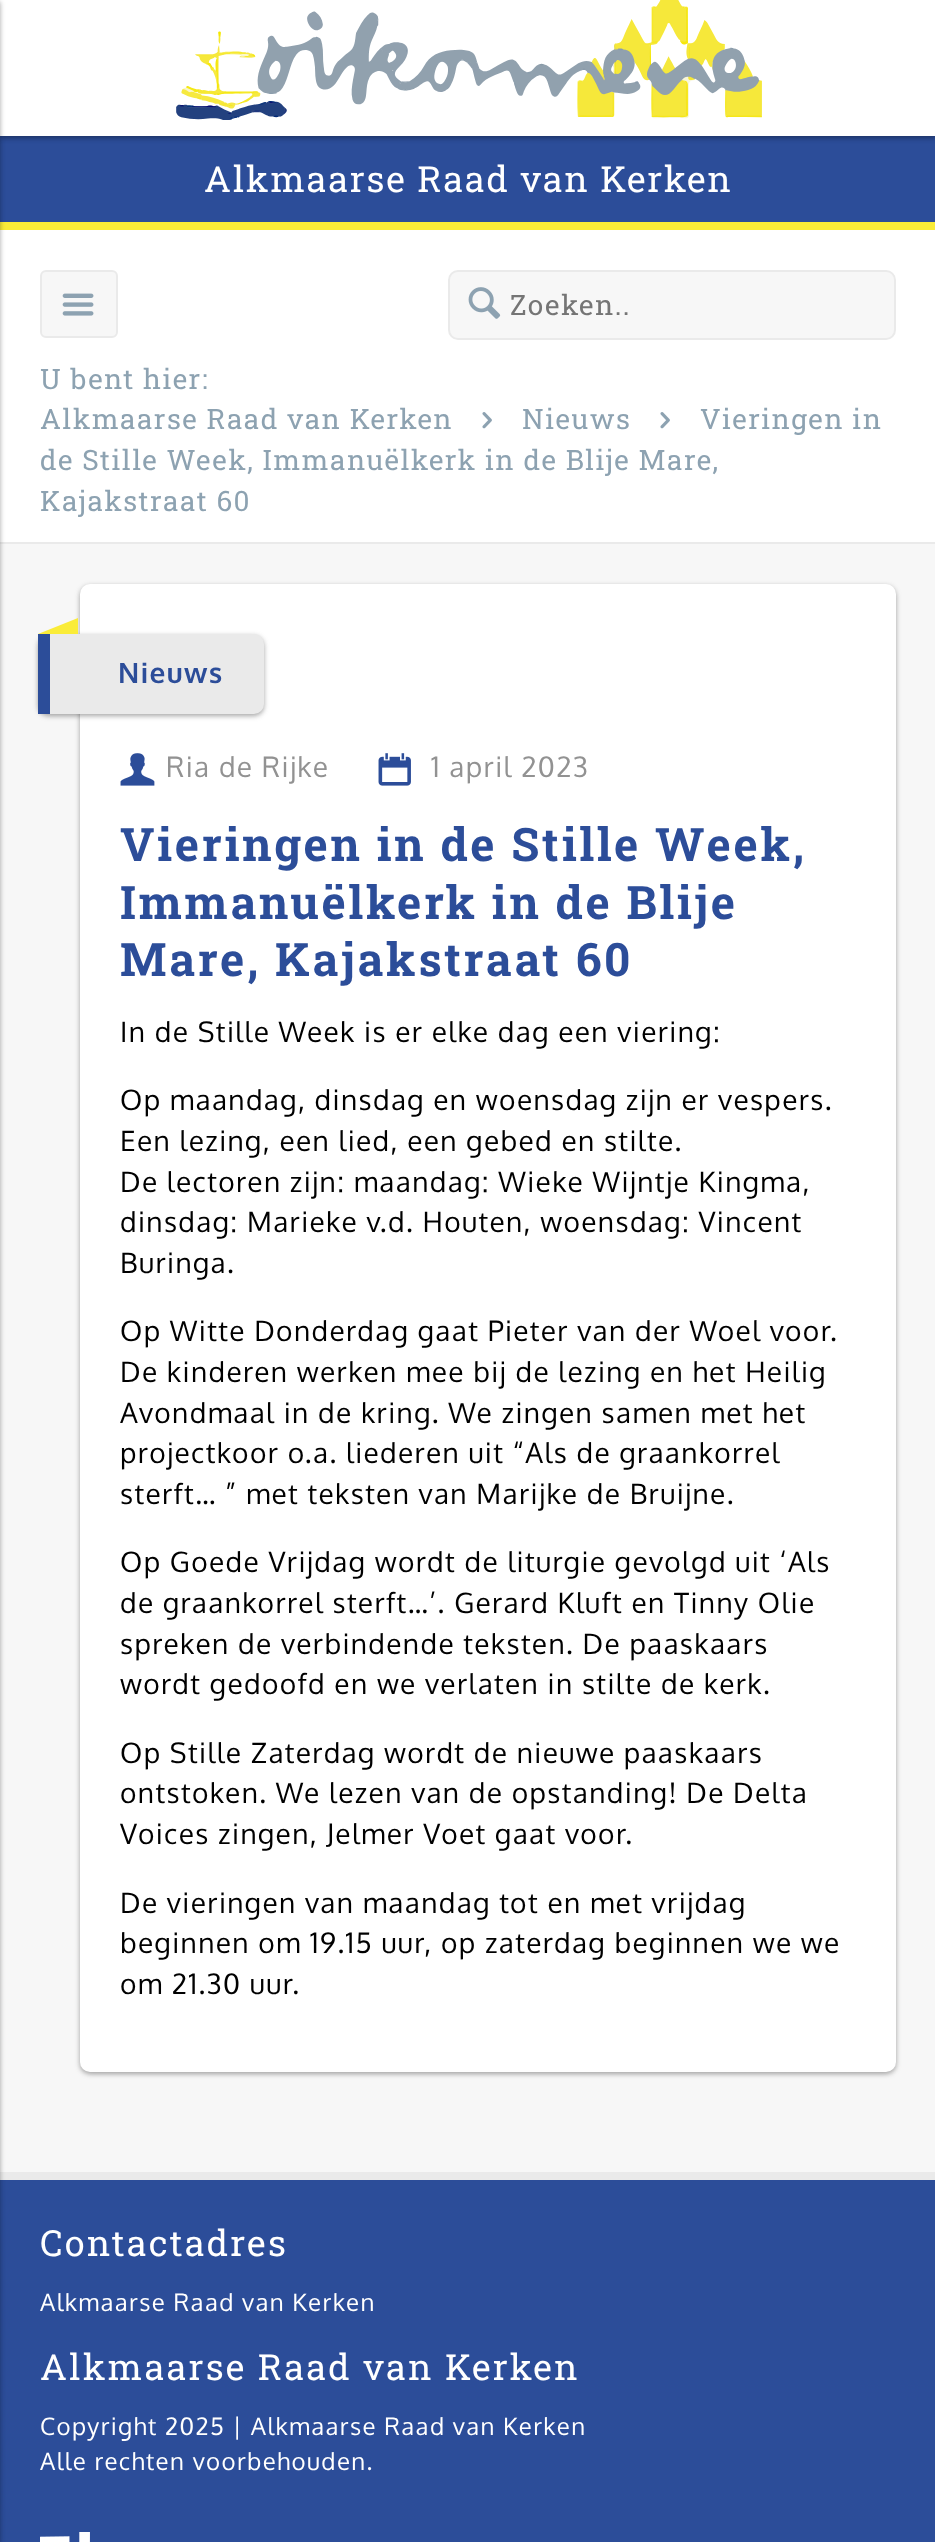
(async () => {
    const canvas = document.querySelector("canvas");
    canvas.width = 935;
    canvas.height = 2542;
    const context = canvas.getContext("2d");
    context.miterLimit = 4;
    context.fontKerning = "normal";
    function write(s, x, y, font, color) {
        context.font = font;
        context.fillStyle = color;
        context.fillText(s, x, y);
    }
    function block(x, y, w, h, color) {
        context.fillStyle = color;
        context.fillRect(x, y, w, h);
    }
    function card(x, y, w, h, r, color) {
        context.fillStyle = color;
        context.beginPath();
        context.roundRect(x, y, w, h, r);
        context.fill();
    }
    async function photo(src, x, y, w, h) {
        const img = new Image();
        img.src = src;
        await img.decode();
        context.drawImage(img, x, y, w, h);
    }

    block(0, 0, 935, 2542, "rgb(44, 77, 153)");
    context.fillStyle = "rgba(0, 0, 0, 0.24)";
    context.filter = "blur(2px)";
    context.beginPath();
    context.rect(0, -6, 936, 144);
    context.fill();
    context.filter = "none";
    context.fillStyle = "rgba(0, 0, 0, 0.12)";
    context.filter = "blur(3px)";
    context.beginPath();
    context.rect(0, -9, 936, 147);
    context.fill();
    context.filter = "none";
    block(0, 0, 935, 136, "rgb(255, 255, 255)");
    await photo("media/1.png", 176, 0, 586, 120);
    block(0, 222, 935, 8, "rgb(250, 236, 56)");
    context.letterSpacing = "1.7px";
    write("Alkmaarse Raad van Kerken", 204, 192, "36px Roboto Slab", "rgb(255, 255, 255)");
    block(0, 230, 935, 312, "rgb(255, 255, 255)");
    block(0, 542, 935, 2, "rgb(234, 234, 234)");
    context.fillStyle = "rgb(247, 247, 247)";
    context.beginPath();
    context.roundRect(41, 271, 76, 66, 5);
    context.fill();
    context.strokeStyle = "rgb(234, 234, 234)";
    context.lineWidth = 2;
    context.stroke();
    await photo("media/2.png", 62, 293, 32, 23);
    context.beginPath();
    context.roundRect(449, 271, 446, 68, 9);
    context.fill();
    context.stroke();
    await photo("media/3.png", 468, 287, 33, 32);
    context.letterSpacing = "1.4px";
    write("Zoeken..", 510, 315, "28px Roboto Slab", "rgb(117, 117, 117)");
    write("U bent hier:", 40, 389, "28px Roboto Slab", "rgb(141, 162, 177)");
    write("Alkmaarse Raad van Kerken", 40, 429, "28px Roboto Slab", "rgb(141, 162, 177)");
    await photo("media/4.png", 482, 412, 10, 17);
    write("Nieuws", 522, 429, "28px Roboto Slab", "rgb(141, 162, 177)");
    await photo("media/4.png", 660, 412, 10, 17);
    write("Vieringen in", 700, 429, "28px Roboto Slab", "rgb(141, 162, 177)");
    write("de Stille Week, Immanuëlkerk in de Blije Mare,", 40, 470, "28px Roboto Slab", "rgb(141, 162, 177)");
    write("Kajakstraat 60", 40, 511, "28px Roboto Slab", "rgb(141, 162, 177)");
    block(0, 544, 935, 1628, "rgb(247, 247, 247)");
    block(0, 2172, 935, 8, "rgb(234, 234, 234)");
    context.fillStyle = "rgba(0, 0, 0, 0.24)";
    context.filter = "blur(2px)";
    context.beginPath();
    context.rect(-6, 2, 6, 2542);
    context.fill();
    context.filter = "none";
    context.fillStyle = "rgba(0, 0, 0, 0.12)";
    context.filter = "blur(3px)";
    context.beginPath();
    context.rect(-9, 2, 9, 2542);
    context.fill();
    context.filter = "none";
    context.fillStyle = "rgba(0, 0, 0, 0.24)";
    context.filter = "blur(2px)";
    context.beginPath();
    context.roundRect(80, 586, 816, 1488, 10);
    context.fill();
    context.filter = "none";
    context.fillStyle = "rgba(0, 0, 0, 0.12)";
    context.filter = "blur(3px)";
    context.beginPath();
    context.roundRect(80, 586, 816, 1488, 10);
    context.fill();
    context.filter = "none";
    card(80, 584, 816, 1488, 10, "rgb(255, 255, 255)");
    context.fillStyle = "rgba(0, 0, 0, 0.24)";
    context.filter = "blur(2px)";
    context.beginPath();
    context.roundRect(38, 636, 226, 80, 10);
    context.fill();
    context.filter = "none";
    context.fillStyle = "rgba(0, 0, 0, 0.12)";
    context.filter = "blur(3px)";
    context.beginPath();
    context.roundRect(38, 636, 226, 80, 10);
    context.fill();
    context.filter = "none";
    context.fillStyle = "rgb(234, 234, 234)";
    context.beginPath();
    context.roundRect(38, 634, 226, 80, [0, 10, 10, 0]);
    context.fill();
    block(38, 634, 12, 80, "rgb(44, 77, 153)");
    context.fillStyle = "rgb(250, 236, 56)";
    context.beginPath();
    context.moveTo(78, 618);
    context.lineTo(78, 634);
    context.lineTo(38, 634);
    context.closePath();
    context.fill();
    write("Nieuws", 118, 683, "bold 28px Oxygen", "rgb(44, 77, 153)");
    await photo("media/5.png", 120, 753, 35, 33);
    write("Ria de Rijke", 166, 777, "28px Oxygen", "rgb(146, 146, 146)");
    await photo("media/6.png", 378, 753, 33, 33);
    write("1 april 2023", 431, 777, "28px Oxygen", "rgb(146, 146, 146)");
    context.letterSpacing = "2.75px";
    write("Vieringen in de Stille Week,", 120, 861, "bold 46px Roboto Slab", "rgb(44, 77, 153)");
    write("Immanuëlkerk in de Blije", 120, 919, "bold 46px Roboto Slab", "rgb(44, 77, 153)");
    write("Mare, Kajakstraat 60", 120, 976, "bold 46px Roboto Slab", "rgb(44, 77, 153)");
    context.letterSpacing = "1.4px";
    write("In de Stille Week is er elke dag een viering:", 120, 1042, "28px Oxygen", "rgb(0, 0, 0)");
    write("Op maandag, dinsdag en woensdag zijn er vespers.", 120, 1110, "28px Oxygen", "rgb(0, 0, 0)");
    write("Een lezing, een lied, een gebed en stilte.", 120, 1151, "28px Oxygen", "rgb(0, 0, 0)");
    write("De lectoren zijn: maandag: Wieke Wijntje Kingma,", 120, 1192, "28px Oxygen", "rgb(0, 0, 0)");
    write("dinsdag: Marieke v.d. Houten, woensdag: Vincent", 120, 1232, "28px Oxygen", "rgb(0, 0, 0)");
    write("Buringa.", 120, 1273, "28px Oxygen", "rgb(0, 0, 0)");
    write("Op Witte Donderdag gaat Pieter van der Woel voor.", 120, 1341, "28px Oxygen", "rgb(0, 0, 0)");
    write("De kinderen werken mee bij de lezing en het Heilig", 120, 1382, "28px Oxygen", "rgb(0, 0, 0)");
    write("Avondmaal in de kring. We zingen samen met het", 120, 1423, "28px Oxygen", "rgb(0, 0, 0)");
    write("projectkoor o.a. liederen uit “Als de graankorrel", 120, 1463, "28px Oxygen", "rgb(0, 0, 0)");
    write("sterft… ” met teksten van Marijke de Bruijne.", 120, 1504, "28px Oxygen", "rgb(0, 0, 0)");
    write("Op Goede Vrijdag wordt de liturgie gevolgd uit ‘Als", 120, 1572, "28px Oxygen", "rgb(0, 0, 0)");
    write("de graankorrel sterft…’. Gerard Kluft en Tinny Olie", 120, 1613, "28px Oxygen", "rgb(0, 0, 0)");
    write("spreken de verbindende teksten. De paaskaars", 120, 1654, "28px Oxygen", "rgb(0, 0, 0)");
    write("wordt gedoofd en we verlaten in stilte de kerk.", 120, 1694, "28px Oxygen", "rgb(0, 0, 0)");
    write("Op Stille Zaterdag wordt de nieuwe paaskaars", 120, 1763, "28px Oxygen", "rgb(0, 0, 0)");
    write("ontstoken. We lezen van de opstanding! De Delta", 120, 1803, "28px Oxygen", "rgb(0, 0, 0)");
    write("Voices zingen, Jelmer Voet gaat voor.", 120, 1844, "28px Oxygen", "rgb(0, 0, 0)");
    write("De vieringen van maandag tot en met vrijdag", 120, 1913, "28px Oxygen", "rgb(0, 0, 0)");
    write("beginnen om 19.15 uur, op zaterdag beginnen we we", 120, 1953, "28px Oxygen", "rgb(0, 0, 0)");
    write("om 21.30 uur.", 120, 1994, "28px Oxygen", "rgb(0, 0, 0)");
    context.letterSpacing = "2.15px";
    write("Contactadres", 40, 2256, "36px Roboto Slab", "rgb(255, 255, 255)");
    context.letterSpacing = "1.4px";
    write("Alkmaarse Raad van Kerken", 40, 2311, "24px Oxygen", "rgb(255, 255, 255)");
    context.letterSpacing = "2.15px";
    write("Alkmaarse Raad van Kerken", 40, 2380, "36px Roboto Slab", "rgb(255, 255, 255)");
    context.letterSpacing = "1.4px";
    write("Copyright 2025 | Alkmaarse Raad van Kerken", 40, 2435, "24px Oxygen", "rgb(255, 255, 255)");
    write("Alle rechten voorbehouden.", 40, 2470, "24px Oxygen", "rgb(255, 255, 255)");
    await photo("media/7.png", 40, 2532, 50, 10);
})();
